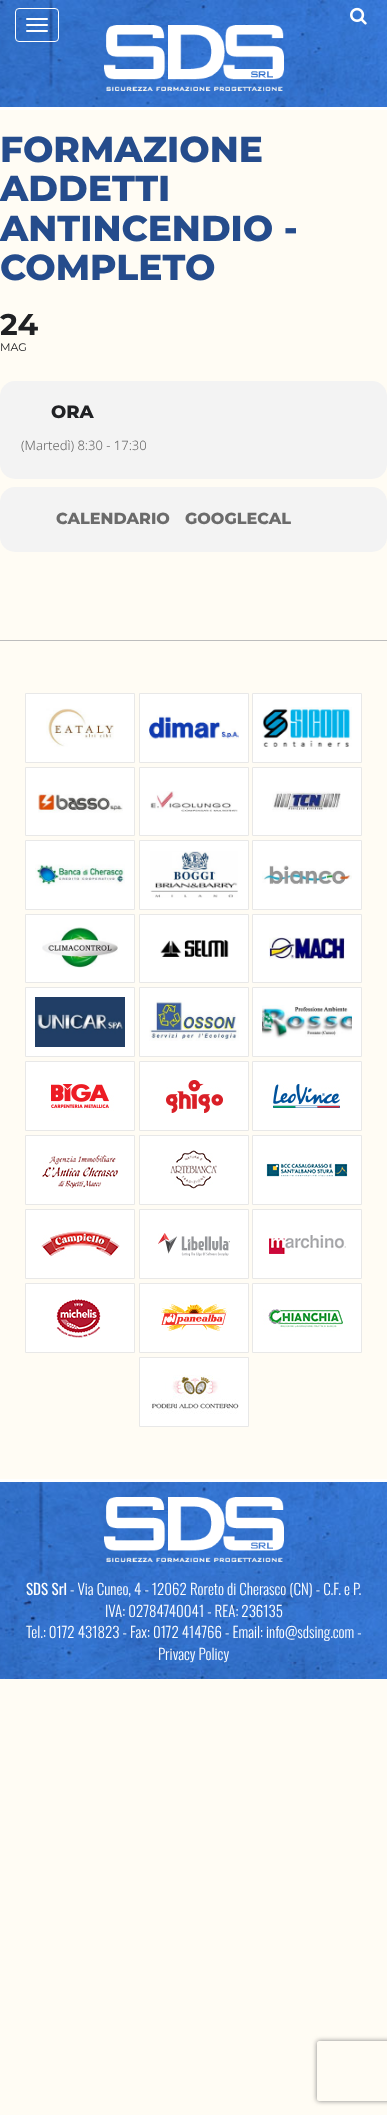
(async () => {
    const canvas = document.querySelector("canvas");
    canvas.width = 387;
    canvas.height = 2115;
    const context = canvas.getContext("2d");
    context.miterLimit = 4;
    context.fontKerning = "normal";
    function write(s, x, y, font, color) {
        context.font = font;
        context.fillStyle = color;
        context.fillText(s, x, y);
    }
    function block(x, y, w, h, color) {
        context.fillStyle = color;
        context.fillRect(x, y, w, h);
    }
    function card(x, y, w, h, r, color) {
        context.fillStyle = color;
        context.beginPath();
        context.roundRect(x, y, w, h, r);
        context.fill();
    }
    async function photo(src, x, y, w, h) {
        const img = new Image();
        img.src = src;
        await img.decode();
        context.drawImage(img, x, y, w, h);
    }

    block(0, 0, 387, 2115, "rgb(255, 252, 244)");
    await photo("media/1.png", 0, 0, 387, 107);
    block(0, 107, 387, 3, "rgb(255, 255, 255)");
    context.beginPath();
    context.roundRect(15.5, 8.5, 43, 33, 3.5);
    context.strokeStyle = "rgb(255, 255, 255)";
    context.stroke();
    card(26, 18, 22, 2, 1, "rgb(255, 255, 255)");
    card(26, 24, 22, 2, 1, "rgb(255, 255, 255)");
    card(26, 30, 22, 2, 1, "rgb(255, 255, 255)");
    await photo("media/2.png", 104, 25, 180, 66);
    await photo("media/3.png", 350, 7, 17, 18);
    write("FORMAZIONE", 0, 162, "800 36px Montserrat", "rgb(37, 76, 140)");
    write("ADDETTI", 0, 201, "800 36px Montserrat", "rgb(37, 76, 140)");
    write("ANTINCENDIO -", 0, 241, "800 36px Montserrat", "rgb(37, 76, 140)");
    write("COMPLETO", 0, 280, "800 36px Montserrat", "rgb(37, 76, 140)");
    write("24", 0, 335, "bold 30px Montserrat", "rgb(32, 33, 36)");
    write("MAG", 0, 351, "11px Montserrat", "rgb(32, 33, 36)");
    card(0, 381, 387, 98, 15, "rgb(243, 243, 243)");
    write("ORA", 51, 418, "800 18px Montserrat", "rgb(32, 33, 36)");
    write("(Martedì) 8:30 - 17:30", 21, 450, "300 13px Noto Sans", "rgb(101, 101, 101)");
    card(0, 487, 387, 65, 15, "rgb(243, 243, 243)");
    write("CALENDARIO", 56, 524, "800 16px Montserrat", "rgb(107, 107, 107)");
    write("GOOGLECAL", 185, 524, "800 16px Montserrat", "rgb(107, 107, 107)");
    block(0, 640, 387, 1, "rgb(189, 189, 189)");
    context.fillStyle = "rgb(255, 255, 255)";
    context.beginPath();
    context.rect(25.5, 693.5, 109, 69);
    context.fill();
    context.strokeStyle = "rgb(232, 232, 232)";
    context.stroke();
    await photo("media/4.png", 46, 708, 68, 39);
    context.beginPath();
    context.rect(139.5, 693.5, 109, 69);
    context.fill();
    context.stroke();
    await photo("media/5.png", 149, 715, 90, 24);
    context.beginPath();
    context.rect(252.5, 693.5, 109, 69);
    context.fill();
    context.stroke();
    await photo("media/6.png", 262, 707, 90, 40);
    context.beginPath();
    context.rect(25.5, 767.5, 109, 68);
    context.fill();
    context.stroke();
    await photo("media/7.png", 38, 792, 85, 21);
    context.beginPath();
    context.rect(139.5, 767.5, 109, 68);
    context.fill();
    context.stroke();
    await photo("media/8.png", 150, 791, 88, 21);
    context.beginPath();
    context.rect(252.5, 767.5, 109, 68);
    context.fill();
    context.stroke();
    await photo("media/9.png", 272, 791, 69, 21);
    context.beginPath();
    context.rect(25.5, 840.5, 109, 69);
    context.fill();
    context.stroke();
    await photo("media/10.png", 35, 864, 90, 22);
    context.beginPath();
    context.rect(139.5, 840.5, 109, 69);
    context.fill();
    context.stroke();
    await photo("media/11.png", 150, 851, 88, 47);
    context.beginPath();
    context.rect(252.5, 840.5, 109, 69);
    context.fill();
    context.stroke();
    await photo("media/12.png", 262, 865, 90, 20);
    context.beginPath();
    context.rect(25.5, 914.5, 109, 68);
    context.fill();
    context.stroke();
    await photo("media/13.png", 42, 927, 76, 41);
    context.beginPath();
    context.rect(139.5, 914.5, 109, 68);
    context.fill();
    context.stroke();
    await photo("media/14.png", 160, 940, 69, 19);
    context.beginPath();
    context.rect(252.5, 914.5, 109, 68);
    context.fill();
    context.stroke();
    await photo("media/15.png", 269, 937, 76, 23);
    context.beginPath();
    context.rect(25.5, 987.5, 109, 69);
    context.fill();
    context.stroke();
    await photo("media/16.png", 35, 997, 90, 50);
    context.beginPath();
    context.rect(139.5, 987.5, 109, 69);
    context.fill();
    context.stroke();
    await photo("media/17.png", 149, 1000, 90, 41);
    context.beginPath();
    context.rect(252.5, 987.5, 109, 69);
    context.fill();
    context.stroke();
    await photo("media/18.png", 262, 1005, 90, 34);
    context.beginPath();
    context.rect(25.5, 1061.5, 109, 69);
    context.fill();
    context.stroke();
    await photo("media/19.png", 51, 1084, 63, 27);
    context.beginPath();
    context.rect(139.5, 1061.5, 109, 69);
    context.fill();
    context.stroke();
    await photo("media/20.png", 166, 1080, 57, 33);
    context.beginPath();
    context.rect(252.5, 1061.5, 109, 69);
    context.fill();
    context.stroke();
    await photo("media/21.png", 273, 1083, 69, 25);
    context.beginPath();
    context.rect(25.5, 1135.5, 109, 69);
    context.fill();
    context.stroke();
    await photo("media/22.png", 42, 1153, 76, 35);
    context.beginPath();
    context.rect(139.5, 1135.5, 109, 69);
    context.fill();
    context.stroke();
    await photo("media/23.png", 170, 1150, 47, 39);
    context.beginPath();
    context.rect(252.5, 1135.5, 109, 69);
    context.fill();
    context.stroke();
    await photo("media/24.png", 266, 1163, 82, 14);
    context.beginPath();
    context.rect(25.5, 1209.5, 109, 69);
    context.fill();
    context.stroke();
    await photo("media/25.png", 41, 1231, 79, 26);
    context.beginPath();
    context.rect(139.5, 1209.5, 109, 69);
    context.fill();
    context.stroke();
    await photo("media/26.png", 158, 1233, 72, 23);
    context.beginPath();
    context.rect(252.5, 1209.5, 109, 69);
    context.fill();
    context.stroke();
    await photo("media/27.png", 269, 1235, 77, 23);
    context.beginPath();
    context.rect(25.5, 1283.5, 109, 69);
    context.fill();
    context.stroke();
    await photo("media/28.png", 56, 1299, 45, 39);
    context.beginPath();
    context.rect(139.5, 1283.5, 109, 69);
    context.fill();
    context.stroke();
    await photo("media/29.png", 161, 1301, 66, 30);
    context.beginPath();
    context.rect(252.5, 1283.5, 109, 69);
    context.fill();
    context.stroke();
    await photo("media/30.png", 263, 1309, 80, 22);
    context.beginPath();
    context.rect(139.5, 1357.5, 109, 69);
    context.fill();
    context.stroke();
    await photo("media/31.png", 150, 1375, 89, 39);
    await photo("media/32.png", 0, 1482, 387, 197);
    block(0, 1479, 387, 3, "rgb(255, 255, 255)");
    await photo("media/33.png", 104, 1497, 180, 65);
    write("SDS Srl", 26, 1595, "15px Oswald", "rgb(255, 255, 255)");
    write("- Via Cuneo, 4 - 12062 Roreto di Cherasco (CN) - C.F. e P.", 70, 1595, "300 15px Oswald", "rgb(255, 255, 255)");
    write("IVA: 02784740041 - REA: 236135", 105, 1617, "300 15px Oswald", "rgb(255, 255, 255)");
    write("Tel.: 0172 431823 - Fax: 0172 414766 - Email: info@sdsing.com -", 26, 1638, "300 15px Oswald", "rgb(255, 255, 255)");
    write("Privacy Policy", 158, 1660, "300 15px Oswald", "rgb(255, 255, 255)");
    context.save();
    context.beginPath();
    context.moveTo(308, 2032);
    context.lineTo(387, 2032);
    context.lineTo(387, 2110);
    context.lineTo(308, 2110);
    context.closePath();
    context.moveTo(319, 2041);
    context.lineTo(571, 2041);
    context.bezierCurveTo(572, 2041, 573, 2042, 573, 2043);
    context.lineTo(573, 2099);
    context.bezierCurveTo(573, 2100, 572, 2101, 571, 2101);
    context.lineTo(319, 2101);
    context.bezierCurveTo(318, 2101, 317, 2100, 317, 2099);
    context.lineTo(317, 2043);
    context.bezierCurveTo(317, 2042, 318, 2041, 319, 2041);
    context.closePath();
    context.clip("evenodd");
    context.fillStyle = "rgb(128, 128, 128)";
    context.filter = "blur(2.5px)";
    context.beginPath();
    context.roundRect(317, 2041, 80, 60, 2);
    context.fill();
    context.filter = "none";
    context.restore();
})();
